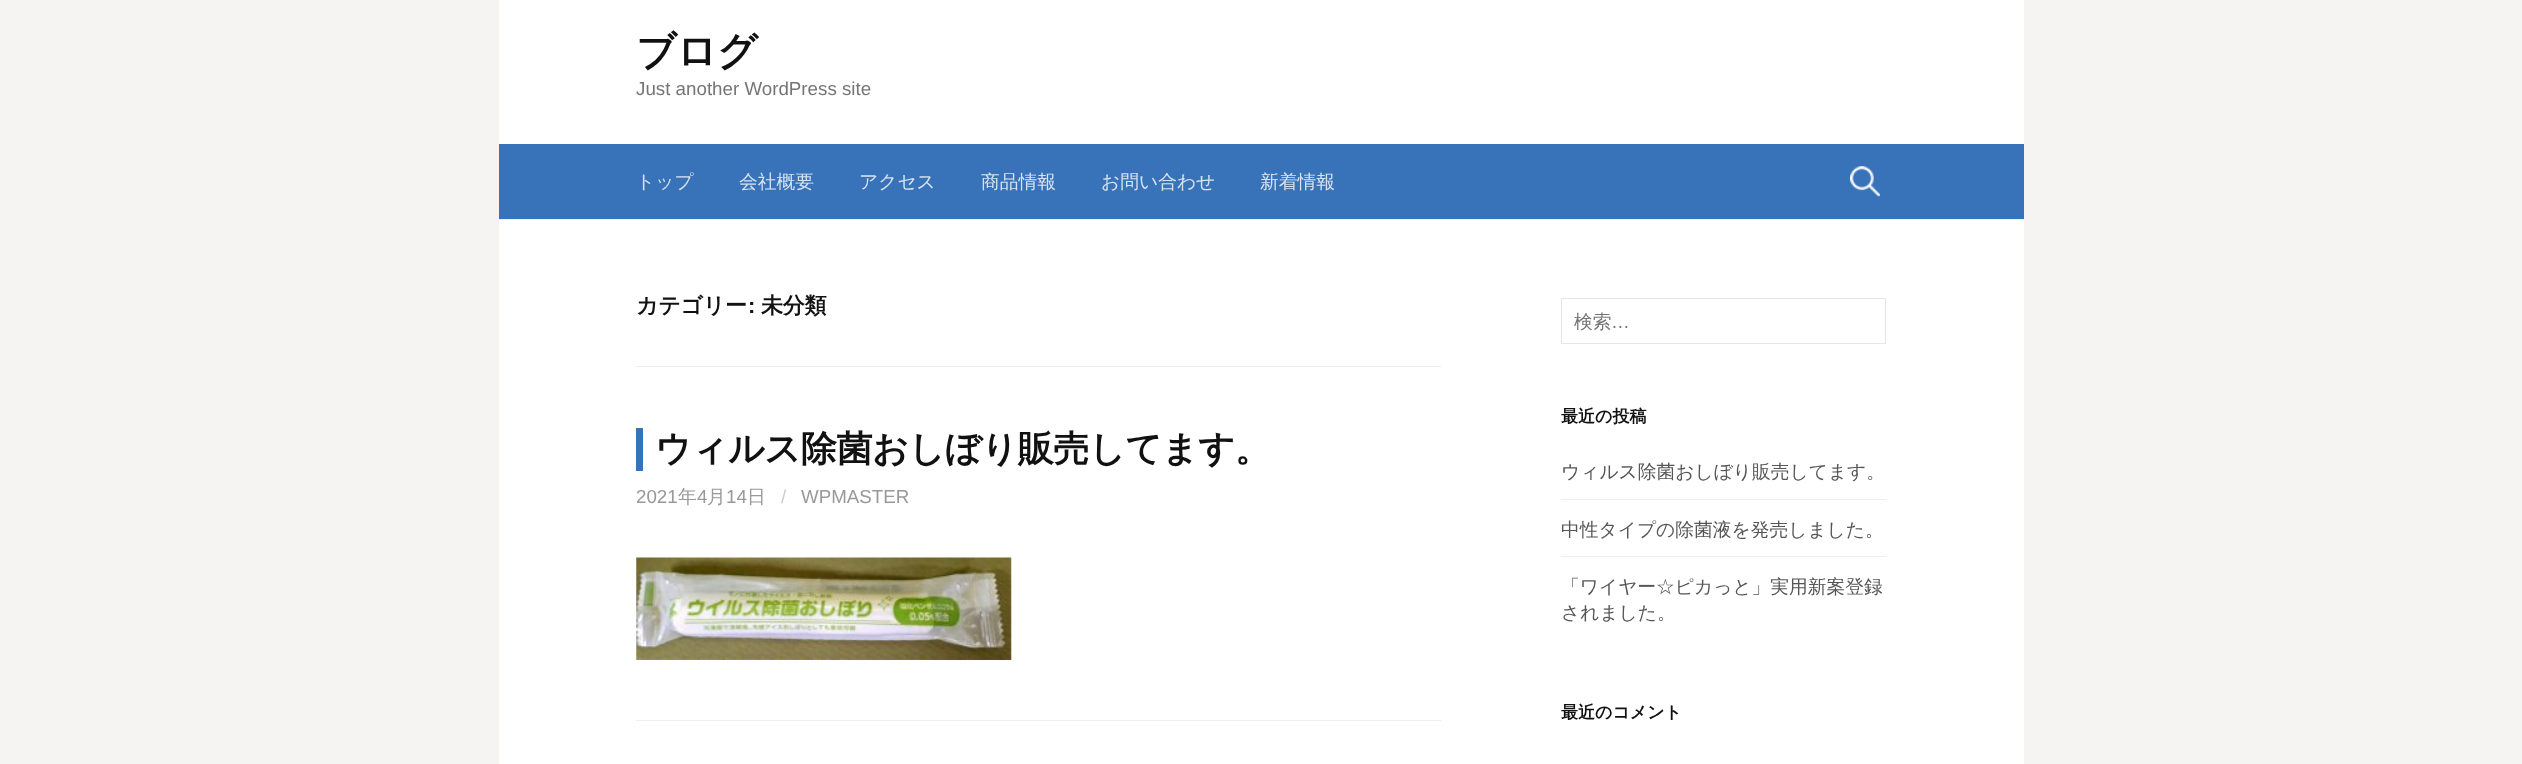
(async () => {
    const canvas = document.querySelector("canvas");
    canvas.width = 2522;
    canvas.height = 764;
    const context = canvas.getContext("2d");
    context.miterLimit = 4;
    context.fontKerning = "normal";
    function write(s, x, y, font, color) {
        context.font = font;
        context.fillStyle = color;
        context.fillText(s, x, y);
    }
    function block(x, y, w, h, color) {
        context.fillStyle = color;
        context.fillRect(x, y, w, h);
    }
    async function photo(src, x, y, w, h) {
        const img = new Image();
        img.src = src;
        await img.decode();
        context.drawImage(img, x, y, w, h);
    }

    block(0, 0, 2522, 764, "rgb(245, 244, 242)");
    block(499, 0, 1525, 764, "rgb(255, 255, 255)");
    block(499, 219, 1525, 1, "rgb(238, 238, 238)");
    context.letterSpacing = "-0.5px";
    write("ブログ", 636, 65, "bold 40px WenQuanYi Zen Hei", "rgb(17, 17, 17)");
    context.letterSpacing = "0px";
    write("Just another WordPress site", 636, 95, "18.75px Liberation Sans", "rgb(117, 117, 117)");
    block(499, 144, 1525, 75, "rgb(56, 114, 184)");
    write("トップ", 636, 188, "500 18.75px WenQuanYi Zen Hei", "rgb(215, 227, 241)");
    write("会社概要", 739, 188, "500 18.75px WenQuanYi Zen Hei", "rgb(215, 227, 241)");
    write("アクセス", 859, 188, "500 18.75px WenQuanYi Zen Hei", "rgb(215, 227, 241)");
    write("商品情報", 981, 188, "500 18.75px WenQuanYi Zen Hei", "rgb(215, 227, 241)");
    write("お問い合わせ", 1101, 188, "500 18.75px WenQuanYi Zen Hei", "rgb(215, 227, 241)");
    write("新着情報", 1260, 188, "500 18.75px WenQuanYi Zen Hei", "rgb(215, 227, 241)");
    await photo("media/1.png", 1850, 166, 30, 31);
    block(636, 366, 805, 1, "rgb(238, 238, 238)");
    context.letterSpacing = "-0.25px";
    write("カテゴリー", 636, 313, "bold 22px WenQuanYi Zen Hei", "rgb(17, 17, 17)");
    write(":", 748, 313, "bold 22px Liberation Sans", "rgb(17, 17, 17)");
    write("未分類", 761, 313, "bold 22px WenQuanYi Zen Hei", "rgb(17, 17, 17)");
    block(636, 720, 805, 1, "rgb(238, 238, 238)");
    block(636, 428, 7, 43, "rgb(56, 114, 184)");
    context.letterSpacing = "-0.4px";
    write("ウィルス除菌おしぼり販売してます。", 655, 461, "bold 36px WenQuanYi Zen Hei", "rgb(17, 17, 17)");
    context.letterSpacing = "0px";
    write("2021", 636, 503, "18.75px Liberation Sans", "rgb(153, 153, 153)");
    write("年", 678, 503, "500 18.75px WenQuanYi Zen Hei", "rgb(153, 153, 153)");
    write("4", 697, 503, "18.75px Liberation Sans", "rgb(153, 153, 153)");
    write("月", 707, 503, "500 18.75px WenQuanYi Zen Hei", "rgb(153, 153, 153)");
    write("14", 726, 503, "18.75px Liberation Sans", "rgb(153, 153, 153)");
    write("日", 747, 503, "500 18.75px WenQuanYi Zen Hei", "rgb(153, 153, 153)");
    write("/", 781, 503, "18.75px Liberation Sans", "rgb(204, 204, 204)");
    write("WPMASTER", 801, 503, "18.75px Liberation Sans", "rgb(153, 153, 153)");
    await photo("media/2.png", 636, 557, 376, 103);
    context.strokeStyle = "rgb(230, 230, 230)";
    context.strokeRect(1561.5, 298.5, 324, 45);
    write("検索", 1574, 328, "500 18.75px WenQuanYi Zen Hei", "rgb(117, 117, 117)");
    write("…", 1611, 328, "18.75px Liberation Sans", "rgb(117, 117, 117)");
    write("最近の投稿", 1561, 422, "bold 17px WenQuanYi Zen Hei", "rgb(17, 17, 17)");
    write("ウィルス除菌おしぼり販売してます。", 1561, 478, "500 18.75px WenQuanYi Zen Hei", "rgb(85, 85, 85)");
    block(1561, 499, 325, 1, "rgb(238, 238, 238)");
    write("中性タイプの除菌液を発売しました。", 1561, 536, "500 18.75px WenQuanYi Zen Hei", "rgb(85, 85, 85)");
    block(1561, 556, 325, 1, "rgb(238, 238, 238)");
    write("「ワイヤー☆ピカっと」実用新案登録", 1561, 593, "500 18.75px WenQuanYi Zen Hei", "rgb(85, 85, 85)");
    write("されました。", 1561, 619, "500 18.75px WenQuanYi Zen Hei", "rgb(85, 85, 85)");
    write("最近のコメント", 1561, 718, "bold 17px WenQuanYi Zen Hei", "rgb(17, 17, 17)");
})();
